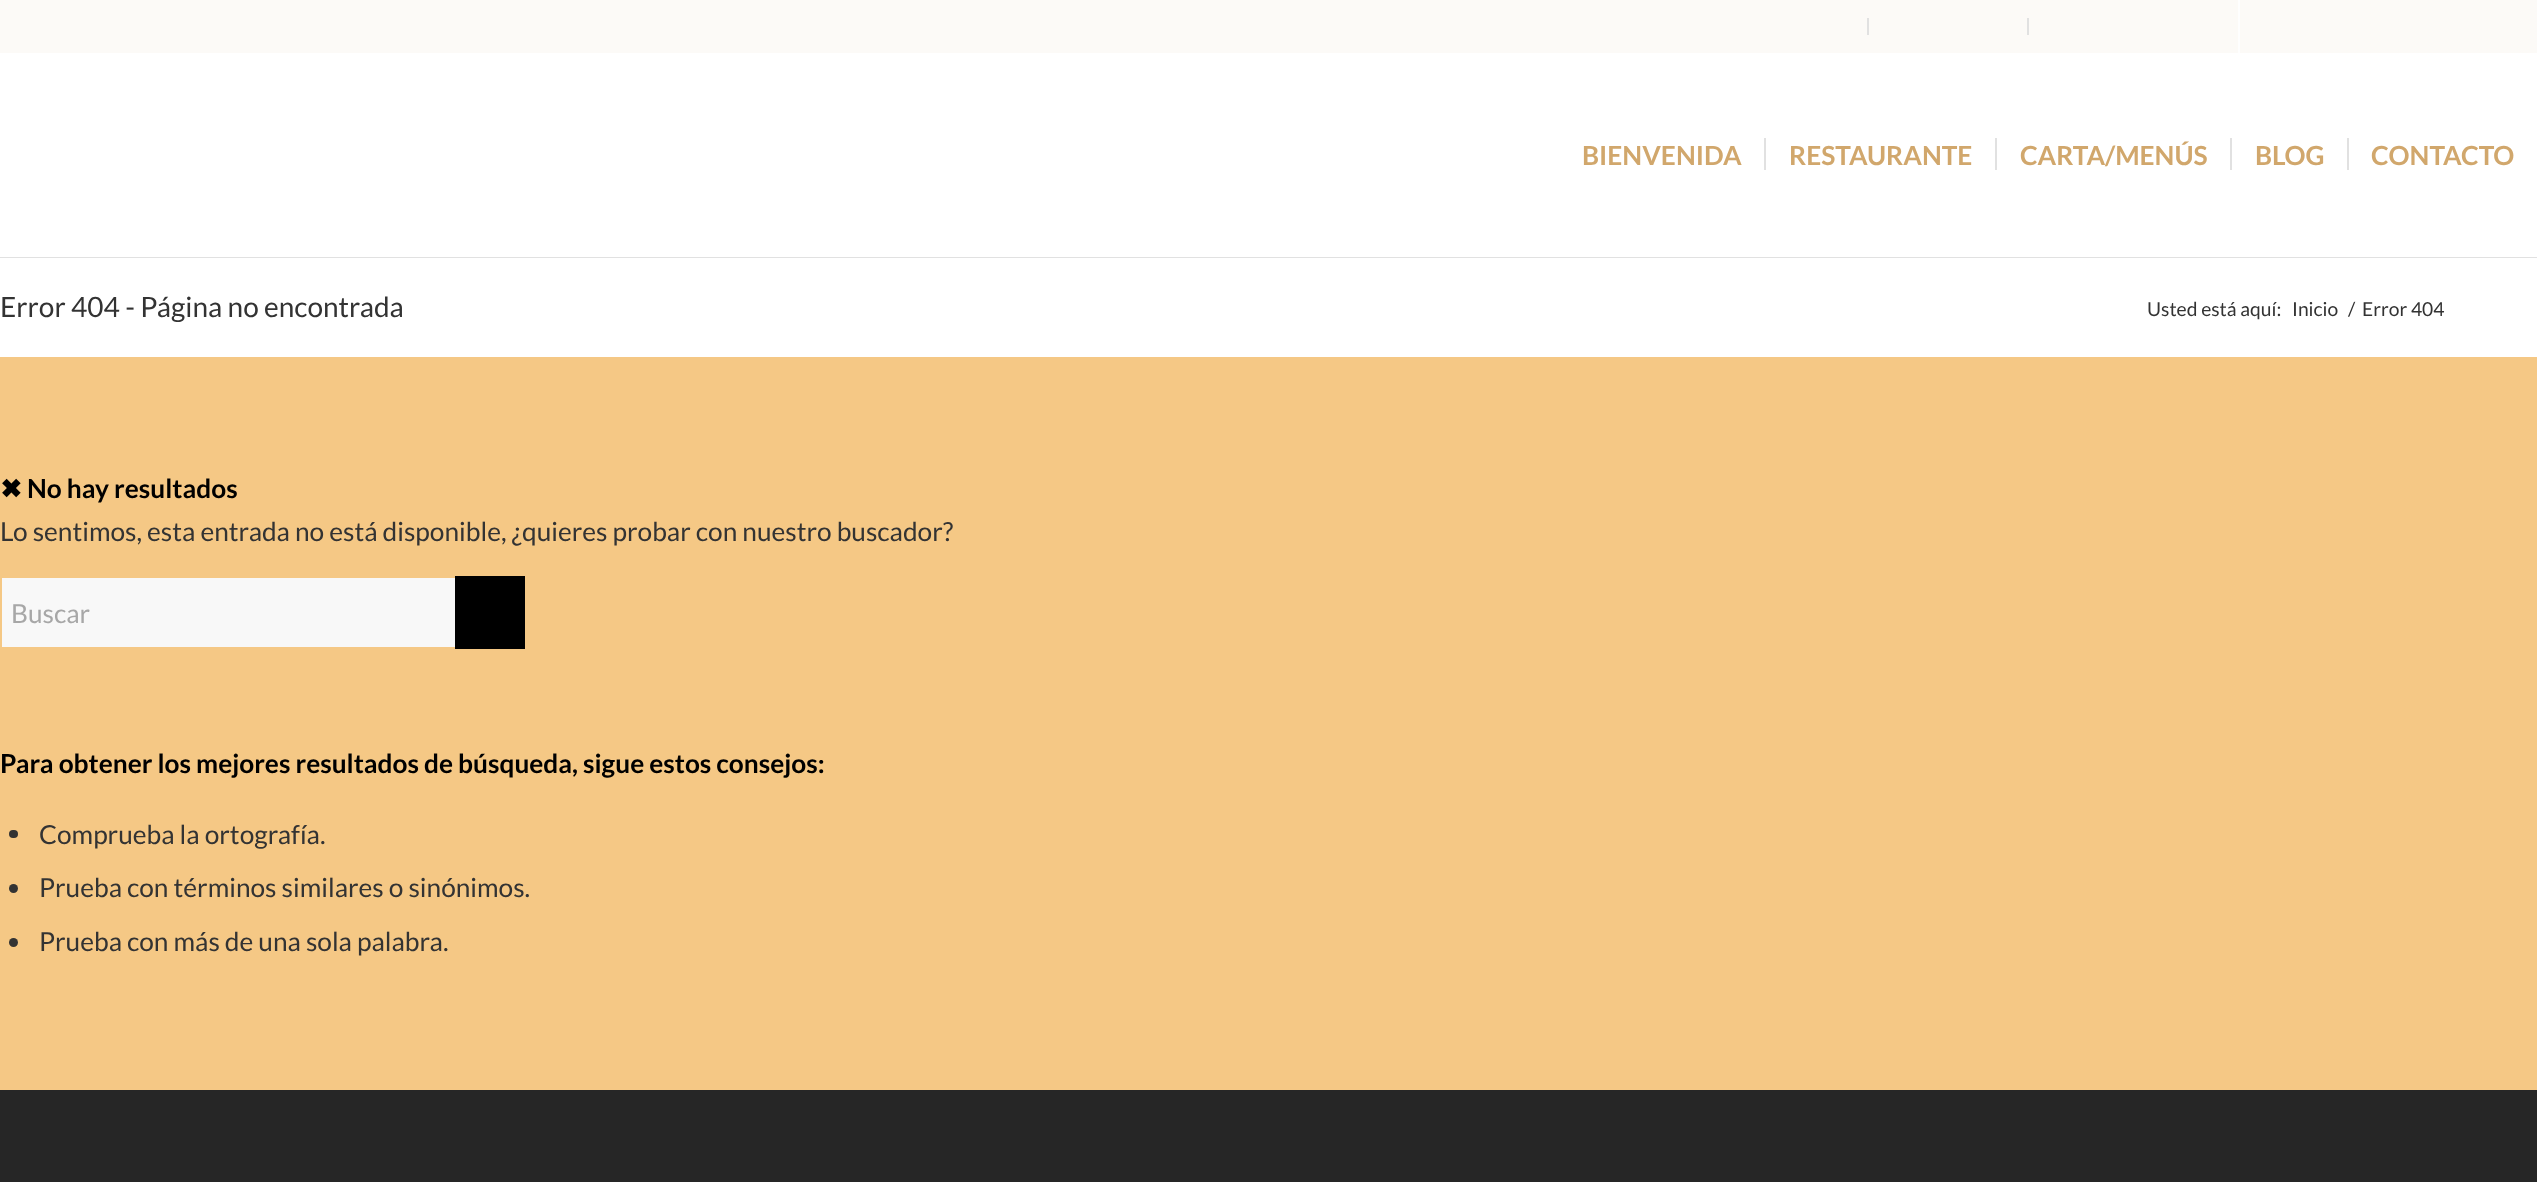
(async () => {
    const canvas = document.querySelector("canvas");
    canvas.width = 2537;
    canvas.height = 1182;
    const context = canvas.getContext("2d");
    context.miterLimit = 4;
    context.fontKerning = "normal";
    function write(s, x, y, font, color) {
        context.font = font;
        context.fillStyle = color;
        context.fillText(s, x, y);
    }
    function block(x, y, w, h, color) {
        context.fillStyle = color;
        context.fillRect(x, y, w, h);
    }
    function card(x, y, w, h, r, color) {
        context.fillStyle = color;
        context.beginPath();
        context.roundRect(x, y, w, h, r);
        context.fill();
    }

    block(0, 0, 2537, 1182, "rgb(255, 255, 255)");
    block(0, 0, 2537, 53, "rgb(252, 250, 247)");
    block(1867, 18, 2, 17, "rgb(225, 225, 225)");
    block(2027, 18, 2, 17, "rgb(225, 225, 225)");
    block(2238, 0, 2, 53, "rgb(254, 254, 254)");
    block(0, 257, 2537, 1, "rgb(225, 225, 225)");
    write("BIENVENIDA", 1582, 165, "bold 26.25px Lato", "rgb(209, 167, 108)");
    write("RESTAURANTE", 1789, 165, "bold 26.25px Lato", "rgb(209, 167, 108)");
    block(1764, 138, 2, 32, "rgb(225, 225, 225)");
    write("CARTA/MENÚS", 2020, 165, "bold 26.25px Lato", "rgb(209, 167, 108)");
    block(1995, 138, 2, 32, "rgb(225, 225, 225)");
    write("BLOG", 2255, 165, "bold 26.25px Lato", "rgb(209, 167, 108)");
    block(2230, 138, 2, 32, "rgb(225, 225, 225)");
    write("CONTACTO", 2371, 165, "bold 26.25px Lato", "rgb(209, 167, 108)");
    block(2347, 138, 2, 32, "rgb(225, 225, 225)");
    write("Error 404 - Página no encontrada", 0, 317, "28px Lato", "rgb(51, 51, 51)");
    write("Usted está aquí:", 2147, 316, "19.25px Lato", "rgb(51, 51, 51)");
    write("Inicio", 2292, 316, "19.25px Lato", "rgb(51, 51, 51)");
    write("/", 2348, 316, "19.25px Lato", "rgb(51, 51, 51)");
    write("Error 404", 2362, 316, "19.25px Lato", "rgb(51, 51, 51)");
    block(0, 357, 2537, 733, "rgb(245, 200, 133)");
    write("✖", 0, 498, "bold 26.25px DejaVu Sans", "rgb(0, 0, 0)");
    write("No hay resultados", 27, 498, "bold 26.25px Lato", "rgb(0, 0, 0)");
    write("Lo sentimos, esta entrada no está disponible, ¿quieres probar con nuestro buscador?", 0, 541, "26.25px Lato", "rgb(51, 51, 51)");
    block(2, 578, 453, 69, "rgb(248, 248, 248)");
    write("Buscar", 11, 623, "26.25px Lato", "rgb(167, 167, 167)");
    block(455, 576, 70, 73, "rgb(0, 0, 0)");
    write("Para obtener los mejores resultados de búsqueda, sigue estos consejos:", 0, 773, "bold 26.25px Lato", "rgb(0, 0, 0)");
    card(9, 830, 9, 8, 4, "rgb(51, 51, 51)");
    write("Comprueba la ortografía.", 39, 844, "26.25px Lato", "rgb(51, 51, 51)");
    context.beginPath();
    context.arc(13.5, 888.5, 4.5, 0, Math.PI * 2);
    context.fill();
    write("Prueba con términos similares o sinónimos.", 39, 897, "26.25px Lato", "rgb(51, 51, 51)");
    context.beginPath();
    context.arc(13.5, 942.5, 4.5, 0, Math.PI * 2);
    context.fill();
    write("Prueba con más de una sola palabra.", 39, 951, "26.25px Lato", "rgb(51, 51, 51)");
    block(0, 1090, 2537, 92, "rgb(38, 38, 38)");
})();
